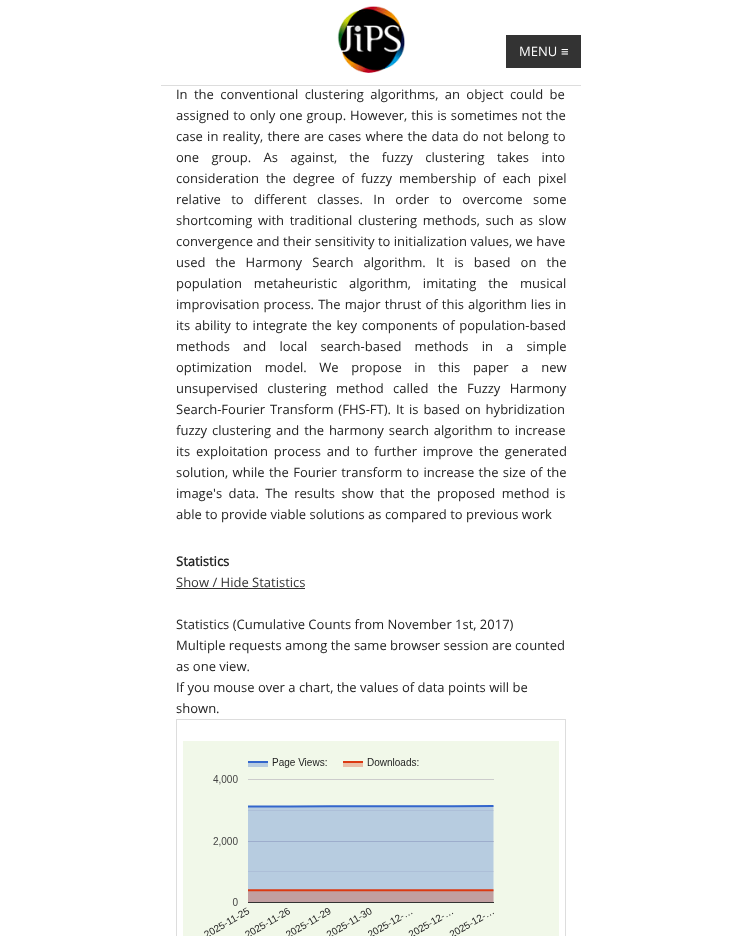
(async () => {
    const canvas = document.querySelector("canvas");
    canvas.width = 742;
    canvas.height = 936;
    const context = canvas.getContext("2d");
    context.miterLimit = 4;
    context.fontKerning = "normal";
    function write(s, x, y, font, color) {
        context.font = font;
        context.fillStyle = color;
        context.fillText(s, x, y);
    }
    function block(x, y, w, h, color) {
        context.fillStyle = color;
        context.fillRect(x, y, w, h);
    }
    async function photo(src, x, y, w, h) {
        const img = new Image();
        img.src = src;
        await img.decode();
        context.drawImage(img, x, y, w, h);
    }

    block(0, 0, 742, 936, "rgb(255, 255, 255)");
    await photo("media/1.png", 337, 6, 68, 67);
    block(506, 35, 75, 33, "rgb(51, 51, 51)");
    write("MENU", 519, 56, "13px Open Sans", "rgb(255, 255, 255)");
    write("≡", 561, 56, "bold 13px Liberation Sans", "rgb(255, 255, 255)");
    block(161, 85, 420, 1, "rgb(221, 221, 221)");
    context.wordSpacing = "3px";
    write("In the conventional clustering algorithms, an object could be", 176, 99, "13px Open Sans", "rgb(34, 34, 34)");
    context.wordSpacing = "0.6px";
    write("assigned to only one group. However, this is sometimes not the", 176, 120, "13px Open Sans", "rgb(34, 34, 34)");
    context.wordSpacing = "0.8px";
    write("case in reality, there are cases where the data do not belong to", 176, 141, "13px Open Sans", "rgb(34, 34, 34)");
    context.wordSpacing = "9px";
    write("one group. As against, the fuzzy clustering takes into", 176, 162, "13px Open Sans", "rgb(34, 34, 34)");
    context.wordSpacing = "3.5px";
    write("consideration the degree of fuzzy membership of each pixel", 176, 183, "13px Open Sans", "rgb(34, 34, 34)");
    context.wordSpacing = "7px";
    write("relative to different classes. In order to overcome some", 176, 204, "13px Open Sans", "rgb(34, 34, 34)");
    context.wordSpacing = "2.25px";
    write("shortcoming with traditional clustering methods, such as slow", 176, 225, "13px Open Sans", "rgb(34, 34, 34)");
    context.wordSpacing = "0px";
    write("convergence and their sensitivity to initialization values, we have", 176, 246, "13px Open Sans", "rgb(34, 34, 34)");
    context.wordSpacing = "6.75px";
    write("used the Harmony Search algorithm. It is based on the", 176, 267, "13px Open Sans", "rgb(34, 34, 34)");
    context.wordSpacing = "8.5px";
    write("population metaheuristic algorithm, imitating the musical", 176, 288, "13px Open Sans", "rgb(34, 34, 34)");
    context.wordSpacing = "0.75px";
    write("improvisation process. The major thrust of this algorithm lies in", 176, 309, "13px Open Sans", "rgb(34, 34, 34)");
    context.wordSpacing = "1.25px";
    write("its ability to integrate the key components of population-based", 176, 330, "13px Open Sans", "rgb(34, 34, 34)");
    context.wordSpacing = "9.75px";
    write("methods and local search-based methods in a simple", 176, 351, "13px Open Sans", "rgb(34, 34, 34)");
    context.wordSpacing = "9.25px";
    write("optimization model. We propose in this paper a new", 176, 372, "13px Open Sans", "rgb(34, 34, 34)");
    context.wordSpacing = "6px";
    write("unsupervised clustering method called the Fuzzy Harmony", 176, 393, "13px Open Sans", "rgb(34, 34, 34)");
    context.wordSpacing = "1.5px";
    write("Search-Fourier Transform (FHS-FT). It is based on hybridization", 176, 414, "13px Open Sans", "rgb(34, 34, 34)");
    write("fuzzy clustering and the harmony search algorithm to increase", 176, 435, "13px Open Sans", "rgb(34, 34, 34)");
    context.wordSpacing = "2.5px";
    write("its exploitation process and to further improve the generated", 176, 456, "13px Open Sans", "rgb(34, 34, 34)");
    context.wordSpacing = "1px";
    write("solution, while the Fourier transform to increase the size of the", 176, 477, "13px Open Sans", "rgb(34, 34, 34)");
    context.wordSpacing = "3px";
    write("image's data. The results show that the proposed method is", 176, 498, "13px Open Sans", "rgb(34, 34, 34)");
    context.wordSpacing = "0px";
    write("able to provide viable solutions as compared to previous work", 176, 519, "13px Open Sans", "rgb(34, 34, 34)");
    write("Statistics", 176, 566, "bold 13px Open Sans", "rgb(34, 34, 34)");
    write("Show / Hide Statistics", 176, 587, "13px Open Sans", "rgb(51, 51, 51)");
    block(176, 588, 129, 1, "rgb(51, 51, 51)");
    write("Statistics (Cumulative Counts from November 1st, 2017)", 176, 629, "13px Open Sans", "rgb(34, 34, 34)");
    write("Multiple requests among the same browser session are counted", 176, 650, "13px Open Sans", "rgb(34, 34, 34)");
    write("as one view.", 176, 671, "13px Open Sans", "rgb(34, 34, 34)");
    write("If you mouse over a chart, the values of data points will be", 176, 692, "13px Open Sans", "rgb(34, 34, 34)");
    write("shown.", 176, 713, "13px Open Sans", "rgb(34, 34, 34)");
    block(176, 719, 390, 1, "rgb(221, 221, 221)");
    block(565, 719, 1, 217, "rgb(221, 221, 221)");
    block(176, 719, 1, 217, "rgb(221, 221, 221)");
    await photo("media/2.png", 183, 741, 376, 195);
})();
